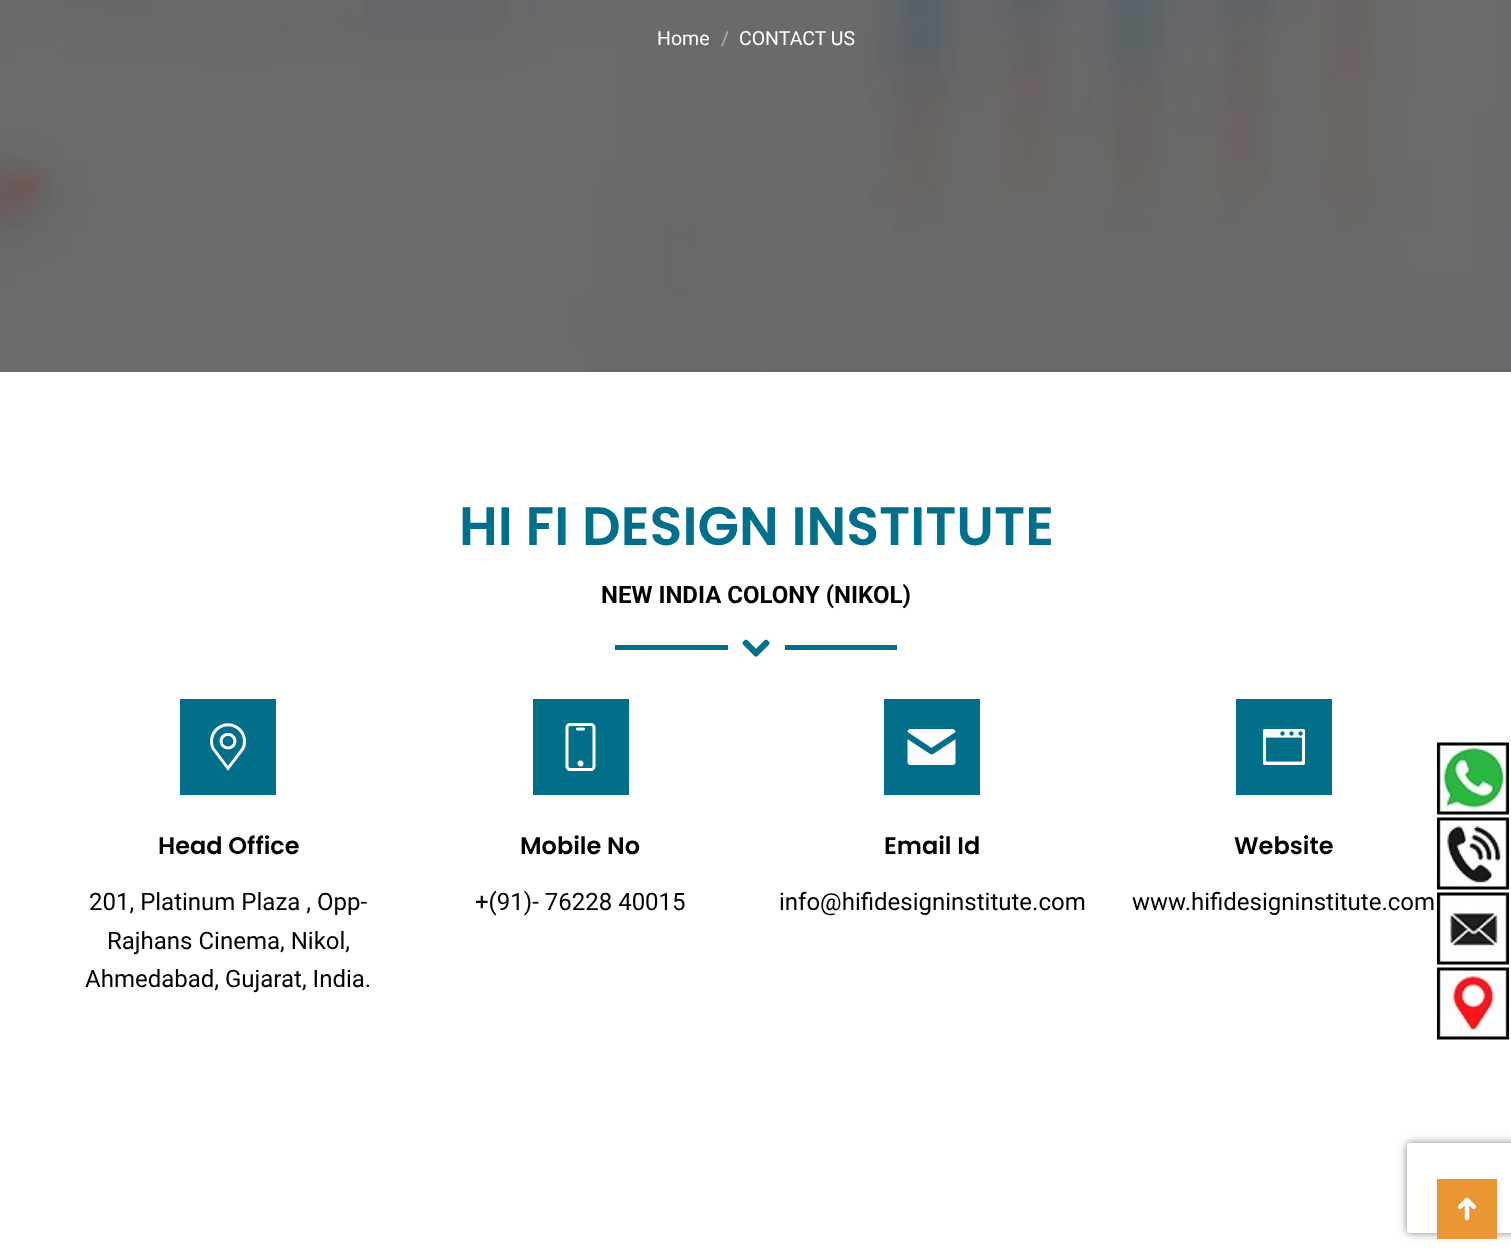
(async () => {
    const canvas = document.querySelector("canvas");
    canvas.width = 1511;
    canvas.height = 1254;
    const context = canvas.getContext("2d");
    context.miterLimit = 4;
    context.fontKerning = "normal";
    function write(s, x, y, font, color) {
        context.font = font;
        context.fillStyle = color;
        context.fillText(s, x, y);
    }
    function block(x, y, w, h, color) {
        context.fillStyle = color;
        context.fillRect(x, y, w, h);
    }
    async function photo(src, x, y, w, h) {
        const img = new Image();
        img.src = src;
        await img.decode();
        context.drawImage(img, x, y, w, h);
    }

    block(0, 0, 1511, 1254, "rgb(255, 255, 255)");
    await photo("media/1.png", 0, 0, 1511, 372);
    write("Home", 657, 45, "19.5px Roboto", "rgb(255, 255, 255)");
    write("/", 721, 45, "19.5px Roboto", "rgb(181, 181, 181)");
    write("CONTACT US", 739, 45, "19.5px Roboto", "rgb(255, 255, 255)");
    write("HI FI DESIGN INSTITUTE", 459, 545, "600 54px Poppins", "rgb(1, 111, 138)");
    write("NEW INDIA COLONY (NIKOL)", 601, 603, "bold 24px Roboto", "rgb(0, 0, 0)");
    block(615, 645, 113, 5, "rgb(1, 111, 138)");
    await photo("media/2.png", 742, 639, 28, 18);
    block(785, 645, 112, 5, "rgb(1, 111, 138)");
    block(180, 699, 96, 96, "rgb(1, 111, 138)");
    await photo("media/3.png", 210, 723, 36, 48);
    write("Head Office", 158, 854, "600 24px Poppins", "rgb(0, 0, 0)");
    write("201, Platinum Plaza , Opp-", 89, 910, "24px Roboto", "rgb(0, 0, 0)");
    write("Rajhans Cinema, Nikol,", 107, 949, "24px Roboto", "rgb(0, 0, 0)");
    write("Ahmedabad, Gujarat, India.", 85, 987, "24px Roboto", "rgb(0, 0, 0)");
    block(533, 699, 96, 96, "rgb(1, 111, 138)");
    await photo("media/4.png", 565, 723, 31, 48);
    write("Mobile No", 520, 854, "600 24px Poppins", "rgb(0, 0, 0)");
    write("+(91)- 76228 40015", 475, 910, "24px Roboto", "rgb(0, 0, 0)");
    block(884, 699, 96, 96, "rgb(1, 111, 138)");
    await photo("media/5.png", 907, 729, 49, 36);
    write("Email Id", 884, 854, "600 24px Poppins", "rgb(0, 0, 0)");
    write("info@hifidesigninstitute.com", 779, 910, "24px Roboto", "rgb(0, 0, 0)");
    block(1236, 699, 96, 96, "rgb(1, 111, 138)");
    await photo("media/6.png", 1263, 729, 42, 36);
    write("Website", 1234, 854, "600 24px Poppins", "rgb(0, 0, 0)");
    write("www.hifidesigninstitute.com", 1132, 910, "24px Roboto", "rgb(0, 0, 0)");
    context.save();
    context.beginPath();
    context.moveTo(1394, 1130);
    context.lineTo(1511, 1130);
    context.lineTo(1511, 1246);
    context.lineTo(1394, 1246);
    context.closePath();
    context.moveTo(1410, 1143);
    context.lineTo(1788, 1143);
    context.bezierCurveTo(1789.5, 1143, 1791, 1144.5, 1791, 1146);
    context.lineTo(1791, 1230);
    context.bezierCurveTo(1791, 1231.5, 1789.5, 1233, 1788, 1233);
    context.lineTo(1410, 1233);
    context.bezierCurveTo(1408.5, 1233, 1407, 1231.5, 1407, 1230);
    context.lineTo(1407, 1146);
    context.bezierCurveTo(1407, 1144.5, 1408.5, 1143, 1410, 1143);
    context.closePath();
    context.clip("evenodd");
    context.fillStyle = "rgb(128, 128, 128)";
    context.filter = "blur(4px)";
    context.beginPath();
    context.roundRect(1407, 1143, 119, 90, 3);
    context.fill();
    context.filter = "none";
    context.restore();
    block(1437, 1179, 60, 60, "rgb(235, 150, 53)");
    await photo("media/7.png", 1458, 1197, 18, 24);
    await photo("media/8.png", 1437, 742, 72, 73);
    await photo("media/9.png", 1437, 817, 72, 73);
    await photo("media/10.png", 1437, 892, 72, 73);
    await photo("media/11.png", 1437, 967, 72, 73);
})();
